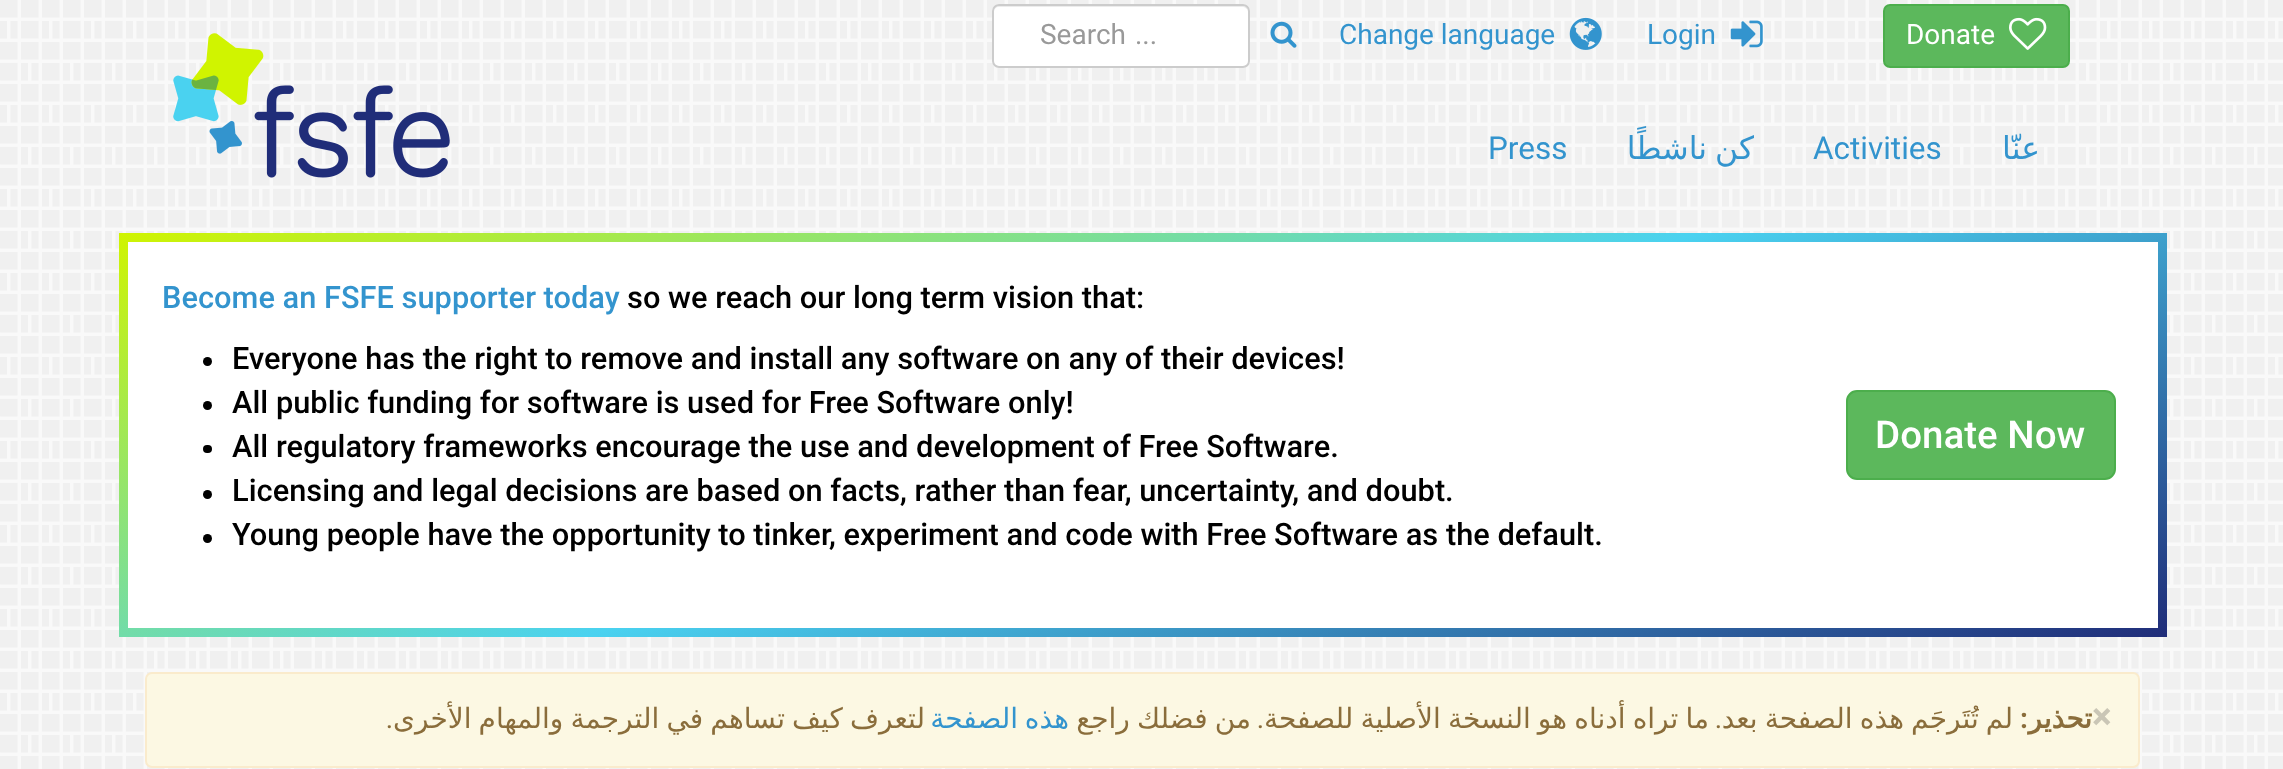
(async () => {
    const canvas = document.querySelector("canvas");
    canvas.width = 2283;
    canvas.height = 769;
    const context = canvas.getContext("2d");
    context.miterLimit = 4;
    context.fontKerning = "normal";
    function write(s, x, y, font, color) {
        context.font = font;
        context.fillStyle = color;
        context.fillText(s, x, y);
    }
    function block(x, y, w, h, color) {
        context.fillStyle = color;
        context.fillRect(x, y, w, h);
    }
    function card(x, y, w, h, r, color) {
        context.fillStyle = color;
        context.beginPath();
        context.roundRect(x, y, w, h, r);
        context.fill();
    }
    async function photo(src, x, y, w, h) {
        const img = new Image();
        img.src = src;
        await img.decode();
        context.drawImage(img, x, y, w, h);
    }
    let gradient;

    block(0, 0, 2283, 769, "rgb(255, 255, 255)");
    await photo("media/1.png", 0, 0, 2283, 769);
    await photo("media/2.png", 173, 33, 277, 145);
    card(992, 4, 258, 64, 7, "rgb(255, 255, 255)");
    context.fillStyle = "rgb(236, 236, 236)";
    context.beginPath();
    context.moveTo(999, 7);
    context.lineTo(1242, 7);
    context.bezierCurveTo(1245, 7, 1248, 9, 1248, 12);
    context.bezierCurveTo(1248, 9, 1247, 5, 1243, 5);
    context.lineTo(999, 5);
    context.bezierCurveTo(995, 5, 994, 9, 994, 12);
    context.bezierCurveTo(994, 9, 996, 7, 999, 7);
    context.closePath();
    context.fill();
    context.beginPath();
    context.roundRect(993, 5, 256, 62, 6);
    context.strokeStyle = "rgb(204, 204, 204)";
    context.lineWidth = 2;
    context.stroke();
    write("Search", 1040, 44, "28px Roboto", "rgb(153, 153, 153)");
    write("...", 1135, 44, "28px Roboto", "rgb(153, 153, 153)");
    await photo("media/3.png", 1270, 21, 27, 27);
    write("Change language", 1339, 44, "28px Roboto", "rgb(51, 148, 206)");
    await photo("media/4.png", 1569, 17, 33, 33);
    write("Login", 1647, 44, "28px Roboto", "rgb(51, 148, 206)");
    await photo("media/5.png", 1730, 20, 33, 28);
    context.fillStyle = "rgb(92, 184, 92)";
    context.beginPath();
    context.roundRect(1884, 5, 185, 62, 6);
    context.fill();
    context.strokeStyle = "rgb(76, 174, 76)";
    context.stroke();
    write("Donate", 1906, 44, "28px Roboto", "rgb(255, 255, 255)");
    await photo("media/6.png", 2009, 17, 38, 33);
    write("Press", 1488, 159, "31.5px Roboto", "rgb(51, 148, 206)");
    context.wordSpacing = "-2px";
    context.direction = "rtl";
    write("كن ناشطًا", 1754, 159, "31.5px DejaVu Sans", "rgb(51, 148, 206)");
    context.wordSpacing = "0px";
    context.direction = "ltr";
    write("Activities", 1813, 159, "31.5px Roboto", "rgb(51, 148, 206)");
    context.direction = "rtl";
    write("عنّا", 2040, 159, "31.5px DejaVu Sans", "rgb(51, 148, 206)");
    gradient = context.createLinearGradient(958, -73, 1327, 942);
    gradient.addColorStop(0, "rgb(208, 244, 0)");
    gradient.addColorStop(0.5, "rgb(74, 210, 240)");
    gradient.addColorStop(1, "rgb(32, 45, 121)");
    context.fillStyle = gradient;
    context.fillRect(119, 233, 2048, 404);
    block(128, 242, 2030, 386, "rgb(255, 255, 255)");
    context.direction = "ltr";
    write("Become an FSFE supporter today", 162, 308, "500 30.8px Roboto", "rgb(51, 148, 206)");
    write("so we reach our long term vision that:", 627, 308, "500 30.8px Roboto", "rgb(0, 0, 0)");
    context.beginPath();
    context.arc(207.5, 361.5, 4.5, 0, Math.PI * 2);
    context.fill();
    write("Everyone has the right to remove and install any software on any of their devices!", 232, 369, "500 30.8px Roboto", "rgb(0, 0, 0)");
    context.beginPath();
    context.arc(207.5, 405.5, 4.5, 0, Math.PI * 2);
    context.fill();
    write("All public funding for software is used for Free Software only!", 232, 413, "500 30.8px Roboto", "rgb(0, 0, 0)");
    card(203, 445, 9, 8, 4, "rgb(0, 0, 0)");
    write("All regulatory frameworks encourage the use and development of Free Software.", 232, 457, "500 30.8px Roboto", "rgb(0, 0, 0)");
    context.beginPath();
    context.arc(207.5, 494.5, 4.5, 0, Math.PI * 2);
    context.fill();
    write("Licensing and legal decisions are based on facts, rather than fear, uncertainty, and doubt.", 232, 501, "500 30.8px Roboto", "rgb(0, 0, 0)");
    context.beginPath();
    context.arc(207.5, 538.5, 4.5, 0, Math.PI * 2);
    context.fill();
    write("Young people have the opportunity to tinker, experiment and code with Free Software as the default.", 232, 545, "500 30.8px Roboto", "rgb(0, 0, 0)");
    context.fillStyle = "rgb(92, 184, 92)";
    context.beginPath();
    context.roundRect(1847, 391, 268, 88, 10);
    context.fill();
    context.stroke();
    write("Donate Now", 1875, 448, "500 38.5px Roboto", "rgb(255, 255, 255)");
    context.fillStyle = "rgb(252, 248, 227)";
    context.beginPath();
    context.roundRect(146, 673, 1993, 94, 6);
    context.fill();
    context.strokeStyle = "rgb(250, 235, 204)";
    context.stroke();
    context.direction = "rtl";
    write(".", 393, 728, "28px Roboto", "rgb(138, 109, 59)");
    context.wordSpacing = "-2px";
    write("هذه الصفحة", 1069, 728, "28px DejaVu Sans", "rgb(51, 148, 206)");
    context.wordSpacing = "-1.75px";
    write("لتعرف كيف تساهم في الترجمة والمهام الأخرى", 925, 728, "28px DejaVu Sans", "rgb(138, 109, 59)");
    write("من فضلك راجع", 1251, 728, "28px DejaVu Sans", "rgb(138, 109, 59)");
    context.wordSpacing = "0px";
    write(".", 1264, 728, "28px Roboto", "rgb(138, 109, 59)");
    context.wordSpacing = "-1.75px";
    write("ما تراه أدناه هو النسخة الأصلية للصفحة", 1709, 728, "28px DejaVu Sans", "rgb(138, 109, 59)");
    context.wordSpacing = "0px";
    write(".", 1722, 728, "28px Roboto", "rgb(138, 109, 59)");
    context.wordSpacing = "-1.75px";
    write("لم تُتَرجَم هذه الصفحة بعد", 2013, 728, "28px DejaVu Sans", "rgb(138, 109, 59)");
    context.wordSpacing = "0px";
    write(":", 2028, 728, "bold 28px Roboto", "rgb(138, 109, 59)");
    write("تحذير", 2092, 728, "bold 28px DejaVu Sans", "rgb(138, 109, 59)");
    context.direction = "ltr";
    write("×", 2092, 729, "bold 37px Roboto", "rgb(202, 198, 182)");
})();
